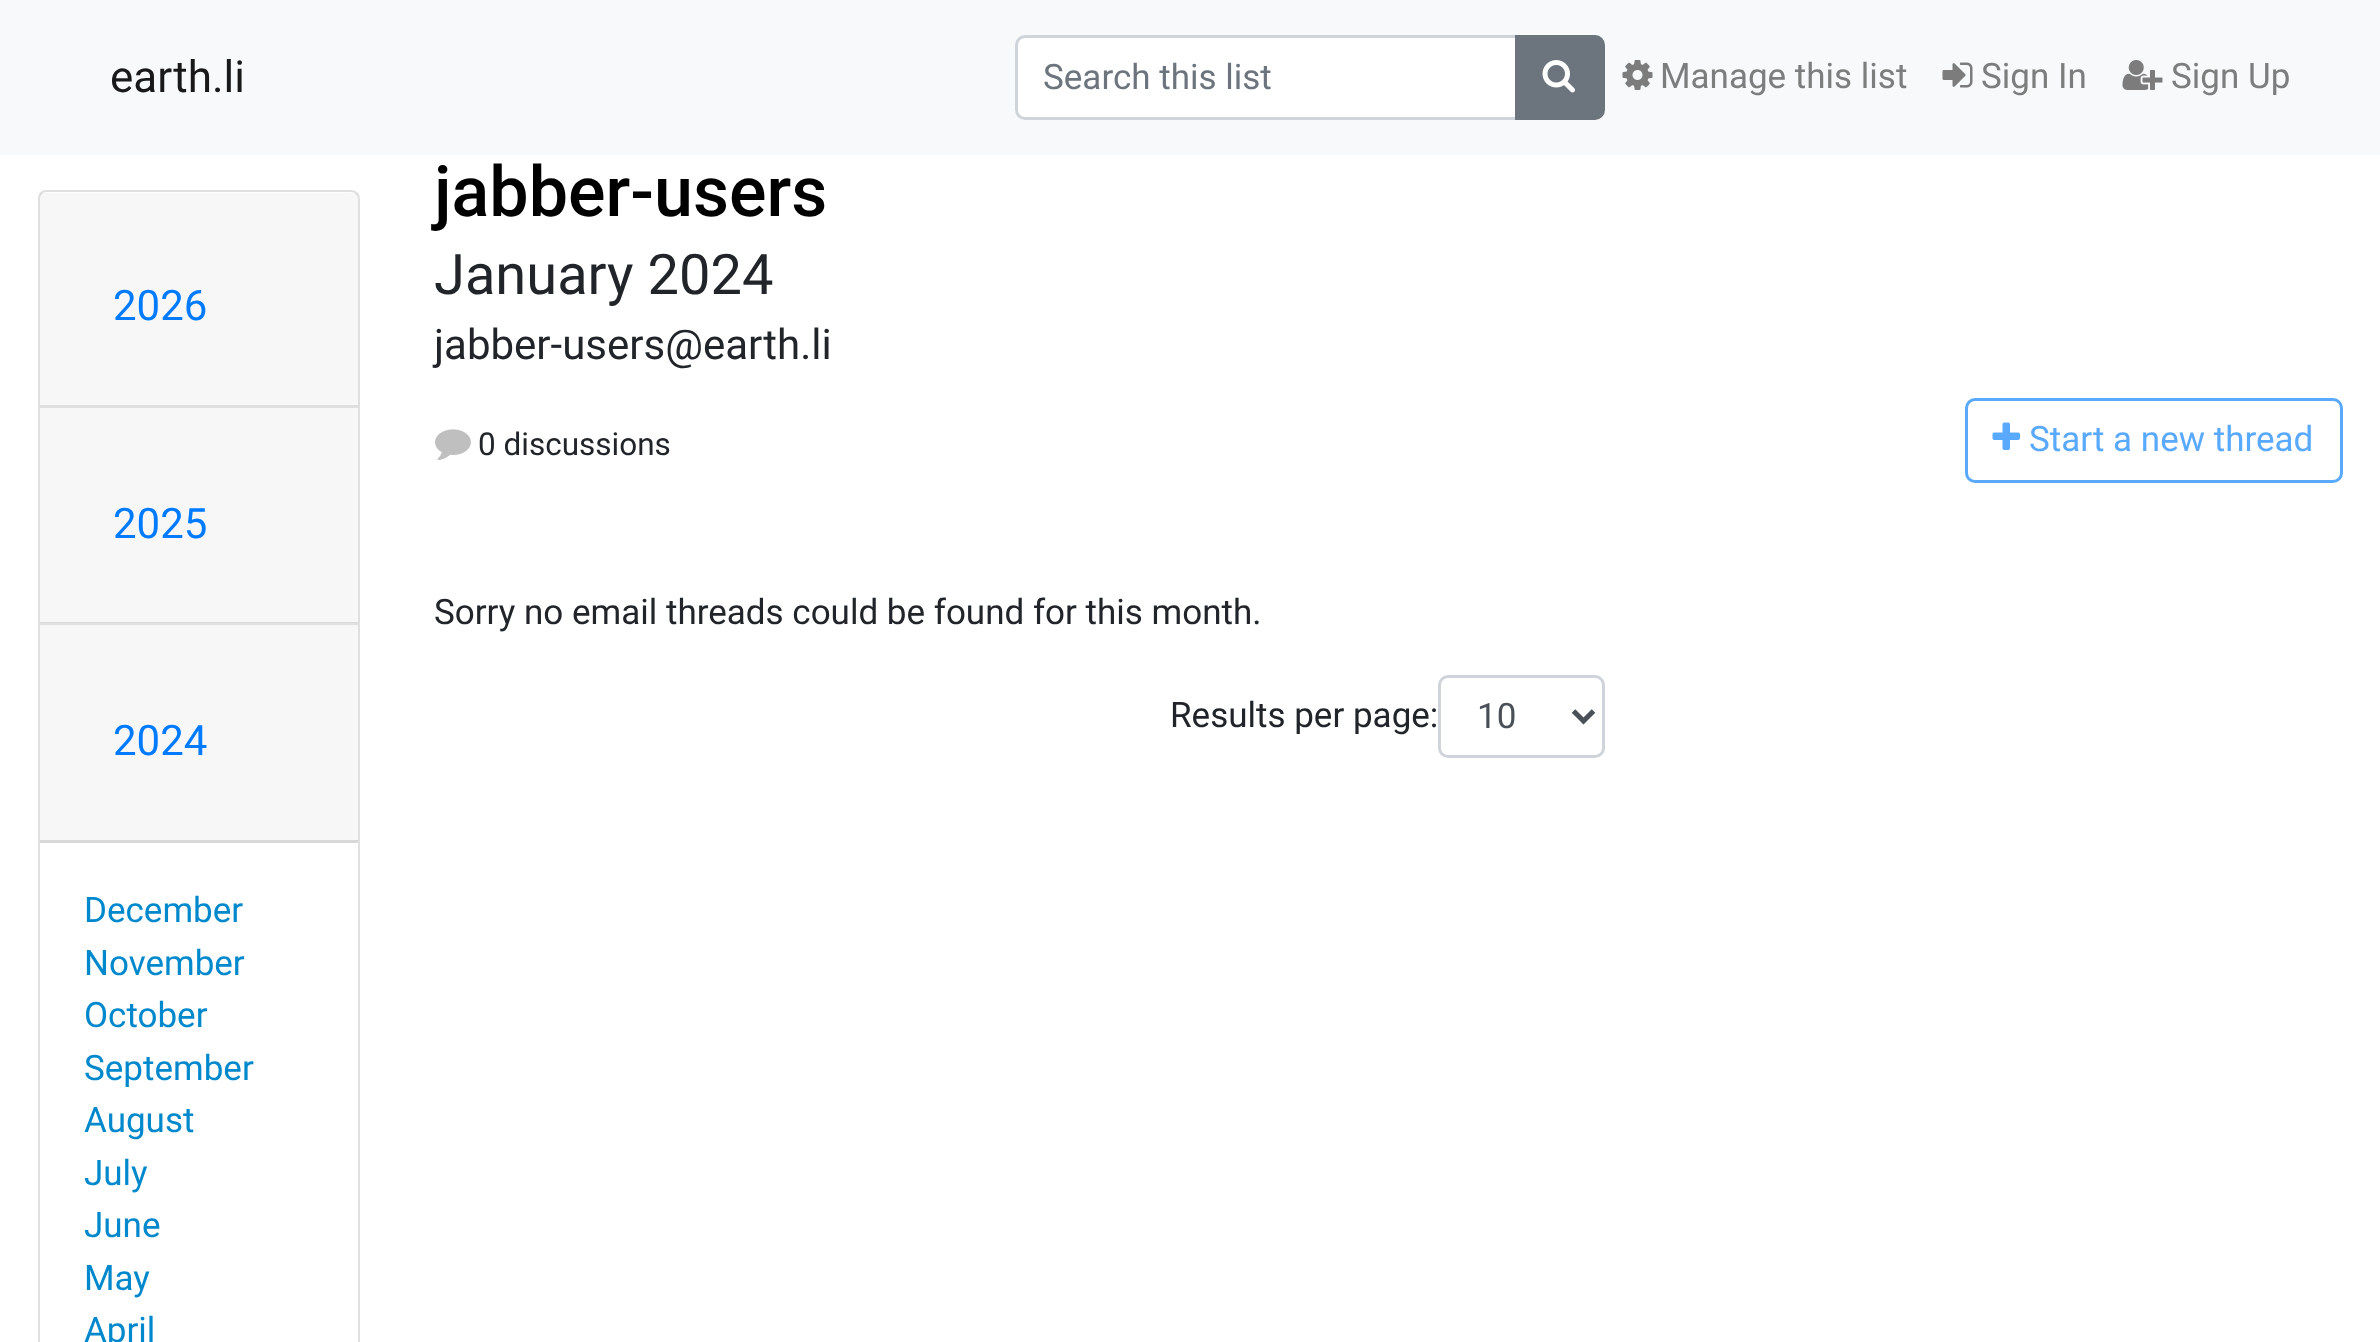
(async () => {
    const canvas = document.querySelector("canvas");
    canvas.width = 2380;
    canvas.height = 1342;
    const context = canvas.getContext("2d");
    context.miterLimit = 4;
    context.fontKerning = "normal";
    function write(s, x, y, font, color) {
        context.font = font;
        context.fillStyle = color;
        context.fillText(s, x, y);
    }
    function block(x, y, w, h, color) {
        context.fillStyle = color;
        context.fillRect(x, y, w, h);
    }
    async function photo(src, x, y, w, h) {
        const img = new Image();
        img.src = src;
        await img.decode();
        context.drawImage(img, x, y, w, h);
    }

    block(0, 0, 2380, 1342, "rgb(255, 255, 255)");
    block(0, 0, 2380, 155, "rgb(248, 249, 250)");
    write("earth.li", 110, 92, "44px Roboto", "rgb(25, 25, 25)");
    context.fillStyle = "rgb(255, 255, 255)";
    context.beginPath();
    context.roundRect(1018, 38, 497, 80, [6, 0, 0, 6]);
    context.fill();
    context.beginPath();
    context.roundRect(1016.5, 36.5, 500, 82, [8.5, 0, 0, 8.5]);
    context.strokeStyle = "rgb(206, 212, 218)";
    context.lineWidth = 3;
    context.stroke();
    write("Search this list", 1043, 89, "35px Roboto", "rgb(108, 117, 125)");
    context.beginPath();
    context.roundRect(1516.5, 36.5, 87, 82, [0, 8.5, 8.5, 0]);
    context.fill();
    context.strokeStyle = "rgb(108, 117, 125)";
    context.stroke();
    await photo("media/1.png", 1542, 60, 33, 33);
    await photo("media/2.png", 1622, 60, 31, 30);
    write("Manage this list", 1660, 88, "35px Roboto", "rgb(124, 125, 125)");
    await photo("media/3.png", 1942, 62, 31, 26);
    write("Sign In", 1981, 88, "35px Roboto", "rgb(124, 125, 125)");
    await photo("media/4.png", 2122, 60, 41, 30);
    write("Sign Up", 2171, 88, "35px Roboto", "rgb(124, 125, 125)");
    context.fillStyle = "rgb(223, 223, 223)";
    context.beginPath();
    context.moveTo(46, 190);
    context.lineTo(351, 190);
    context.bezierCurveTo(356, 190, 360, 194, 360, 199);
    context.lineTo(360, 405);
    context.lineTo(38, 405);
    context.lineTo(38, 199);
    context.bezierCurveTo(38, 194, 41, 190, 46, 190);
    context.closePath();
    context.moveTo(46, 192);
    context.lineTo(351, 192);
    context.bezierCurveTo(355, 192, 358, 195, 358, 199);
    context.lineTo(358, 405);
    context.lineTo(40, 405);
    context.lineTo(40, 199);
    context.bezierCurveTo(40, 195, 43, 192, 46, 192);
    context.closePath();
    context.fill("evenodd");
    block(40, 193, 318, 212, "rgba(0, 0, 0, 0.03)");
    write("2026", 113, 320, "42px Roboto", "rgb(0, 123, 255)");
    context.fillStyle = "rgb(223, 223, 223)";
    context.beginPath();
    context.moveTo(38, 405);
    context.lineTo(360, 405);
    context.lineTo(358, 408);
    context.lineTo(40, 408);
    context.closePath();
    context.fill();
    context.fillStyle = "rgba(0, 0, 0, 0.12)";
    context.beginPath();
    context.moveTo(360, 405);
    context.lineTo(360, 622);
    context.lineTo(358, 622);
    context.lineTo(358, 408);
    context.closePath();
    context.fill();
    context.beginPath();
    context.moveTo(38, 622);
    context.lineTo(38, 405);
    context.lineTo(40, 408);
    context.lineTo(40, 622);
    context.closePath();
    context.fill();
    block(40, 408, 318, 215, "rgb(247, 247, 247)");
    write("2025", 113, 538, "42px Roboto", "rgb(0, 123, 255)");
    context.fillStyle = "rgba(0, 0, 0, 0.12)";
    context.beginPath();
    context.moveTo(38, 622);
    context.lineTo(360, 622);
    context.lineTo(358, 625);
    context.lineTo(40, 625);
    context.closePath();
    context.fill();
    context.beginPath();
    context.moveTo(360, 622);
    context.lineTo(360, 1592);
    context.lineTo(358, 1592);
    context.lineTo(358, 625);
    context.closePath();
    context.fill();
    context.beginPath();
    context.moveTo(38, 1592);
    context.lineTo(38, 622);
    context.lineTo(40, 625);
    context.lineTo(40, 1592);
    context.closePath();
    context.fill();
    block(40, 625, 318, 215, "rgb(247, 247, 247)");
    block(40, 840, 318, 3, "rgb(216, 216, 216)");
    write("2024", 113, 755, "42px Roboto", "rgb(0, 123, 255)");
    write("December", 84, 922, "35px Roboto", "rgb(0, 136, 204)");
    write("November", 84, 975, "35px Roboto", "rgb(0, 136, 204)");
    write("October", 84, 1027, "35px Roboto", "rgb(0, 136, 204)");
    write("September", 84, 1080, "35px Roboto", "rgb(0, 136, 204)");
    write("August", 84, 1132, "35px Roboto", "rgb(0, 136, 204)");
    write("July", 84, 1185, "35px Roboto", "rgb(0, 136, 204)");
    write("June", 84, 1237, "35px Roboto", "rgb(0, 136, 204)");
    write("May", 84, 1290, "35px Roboto", "rgb(0, 136, 204)");
    write("April", 84, 1342, "35px Roboto", "rgb(0, 136, 204)");
    write("jabber-users", 434, 216, "500 70px Roboto", "rgb(0, 0, 0)");
    write("January 2024", 434, 294, "56px Roboto", "rgb(33, 37, 41)");
    write("jabber-users@earth.li", 434, 359, "42px Roboto", "rgb(33, 37, 41)");
    await photo("media/5.png", 435, 429, 36, 32);
    write("0 discussions", 478, 455, "31.5px Roboto", "rgb(33, 37, 41)");
    context.beginPath();
    context.roundRect(1966.5, 399.5, 375, 82, 8.5);
    context.strokeStyle = "rgb(89, 169, 255)";
    context.stroke();
    await photo("media/6.png", 1992, 422, 28, 28);
    write("Start a new thread", 2029, 451, "35px Roboto", "rgb(89, 169, 255)");
    write("Sorry no email threads could be found for this month.", 434, 624, "35px Roboto", "rgb(33, 37, 41)");
    write("Results per page:", 1170, 727, "35px Roboto", "rgb(33, 37, 41)");
    context.beginPath();
    context.roundRect(1439.5, 676.5, 164, 80, 8.5);
    context.strokeStyle = "rgb(206, 212, 218)";
    context.stroke();
    context.beginPath();
    context.moveTo(1573.5, 711);
    context.lineTo(1583.5, 721);
    context.lineTo(1593.5, 711);
    context.strokeStyle = "rgb(73, 80, 87)";
    context.lineWidth = 5;
    context.stroke();
    write("10", 1477, 728, "35px Roboto", "rgb(73, 80, 87)");
})();
